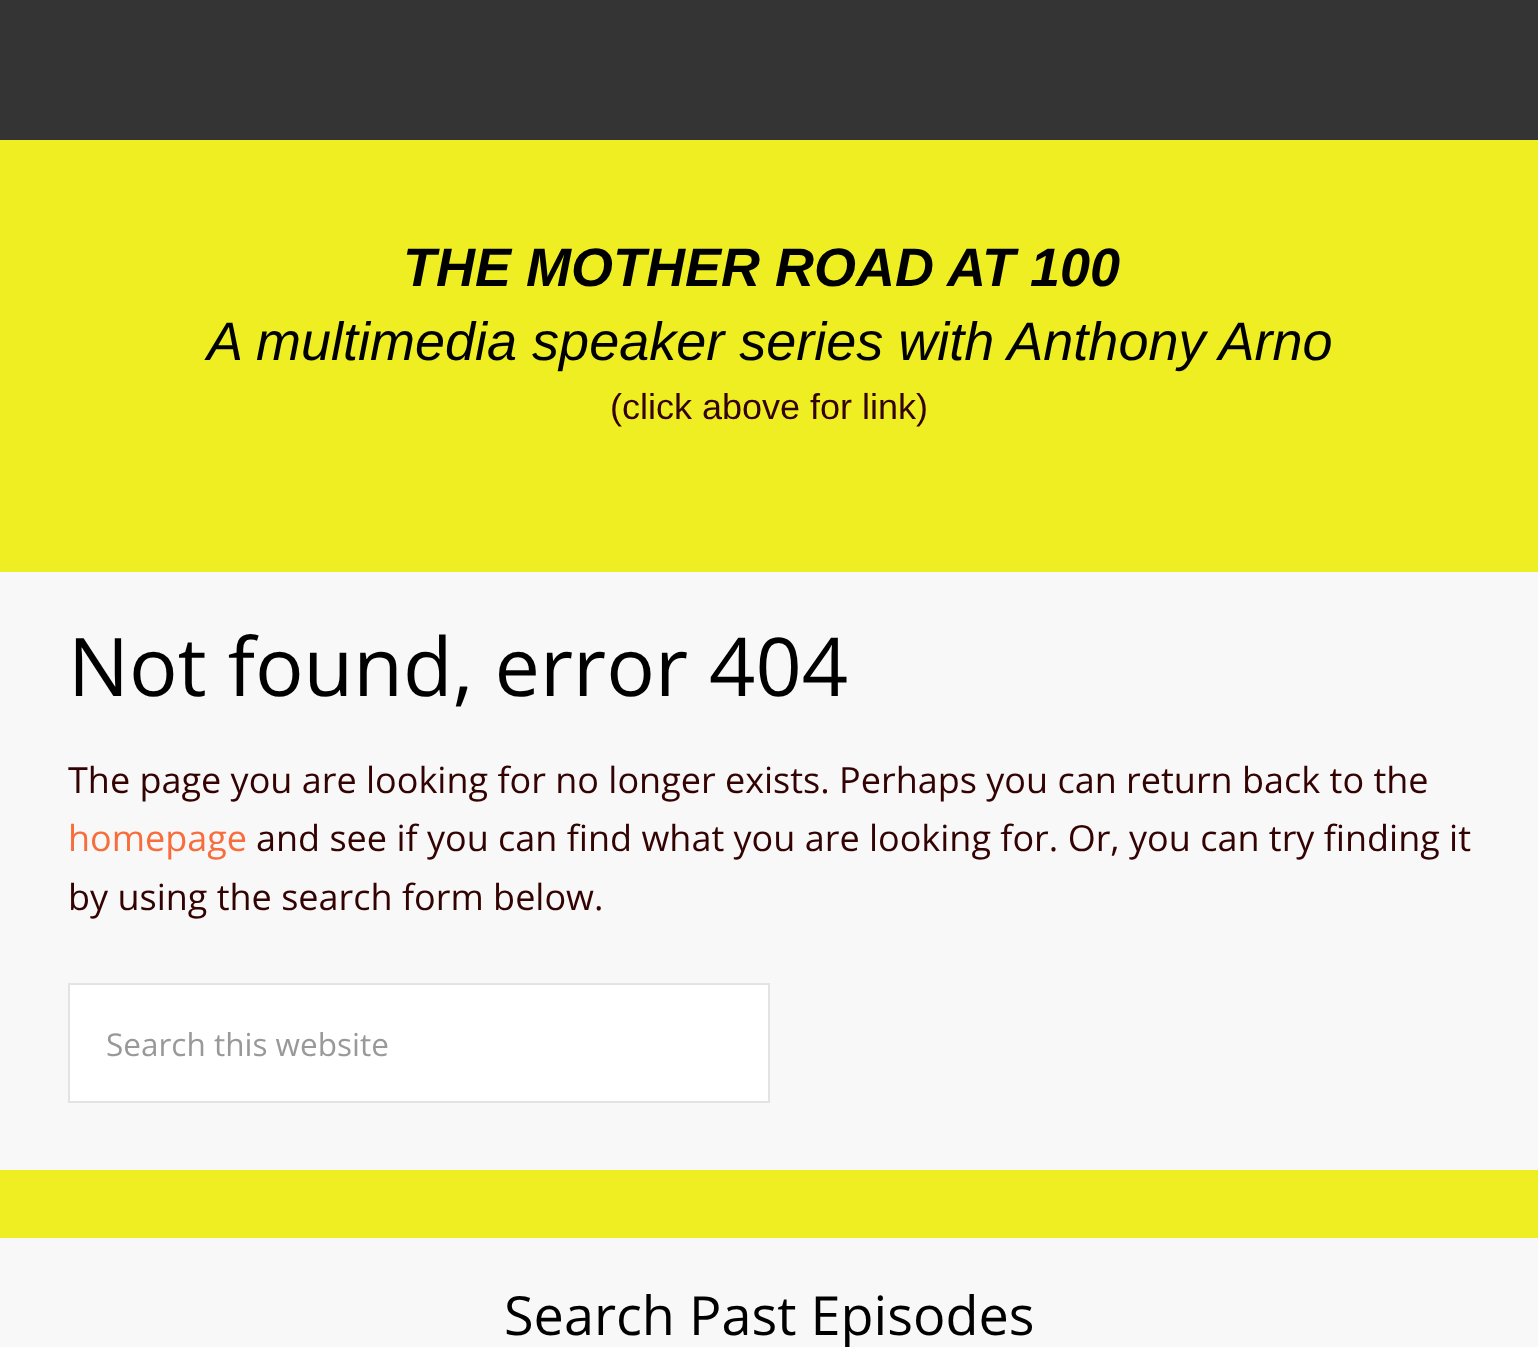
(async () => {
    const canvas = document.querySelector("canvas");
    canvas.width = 1538;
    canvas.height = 1347;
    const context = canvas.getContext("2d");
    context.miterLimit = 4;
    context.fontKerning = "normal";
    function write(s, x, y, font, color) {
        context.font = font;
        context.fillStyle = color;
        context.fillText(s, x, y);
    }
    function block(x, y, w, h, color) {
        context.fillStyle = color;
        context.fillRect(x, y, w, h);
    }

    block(0, 0, 1538, 1347, "rgb(238, 238, 34)");
    block(0, 0, 1538, 140, "rgb(52, 52, 52)");
    write("THE MOTHER ROAD AT 100", 403, 286, "italic bold 54px Liberation Sans", "rgb(0, 0, 0)");
    write("A multimedia speaker series with Anthony Arno", 207, 360, "italic 54px Liberation Sans", "rgb(0, 0, 0)");
    write("(click above for link)", 610, 419, "36px Liberation Sans", "rgb(51, 2, 2)");
    block(0, 572, 1538, 598, "rgb(248, 248, 248)");
    write("Not found, error 404", 68, 696, "81px Open Sans", "rgb(0, 0, 0)");
    write("The page you are looking for no longer exists. Perhaps you can return back to the", 68, 793, "36px Open Sans", "rgb(51, 2, 2)");
    write("homepage", 68, 851, "36px Open Sans", "rgb(247, 109, 60)");
    write("and see if you can find what you are looking for. Or, you can try finding it", 256, 851, "36px Open Sans", "rgb(51, 2, 2)");
    write("by using the search form below.", 68, 910, "36px Open Sans", "rgb(51, 2, 2)");
    context.fillStyle = "rgb(255, 255, 255)";
    context.beginPath();
    context.rect(69, 984, 700, 118);
    context.fill();
    context.strokeStyle = "rgb(227, 227, 227)";
    context.lineWidth = 2;
    context.stroke();
    write("Search this website", 106, 1056, "31.5px Open Sans", "rgb(153, 153, 153)");
    block(0, 1238, 1538, 109, "rgb(248, 248, 248)");
    write("Search Past Episodes", 504, 1335, "54px Open Sans", "rgb(0, 0, 0)");
})();
